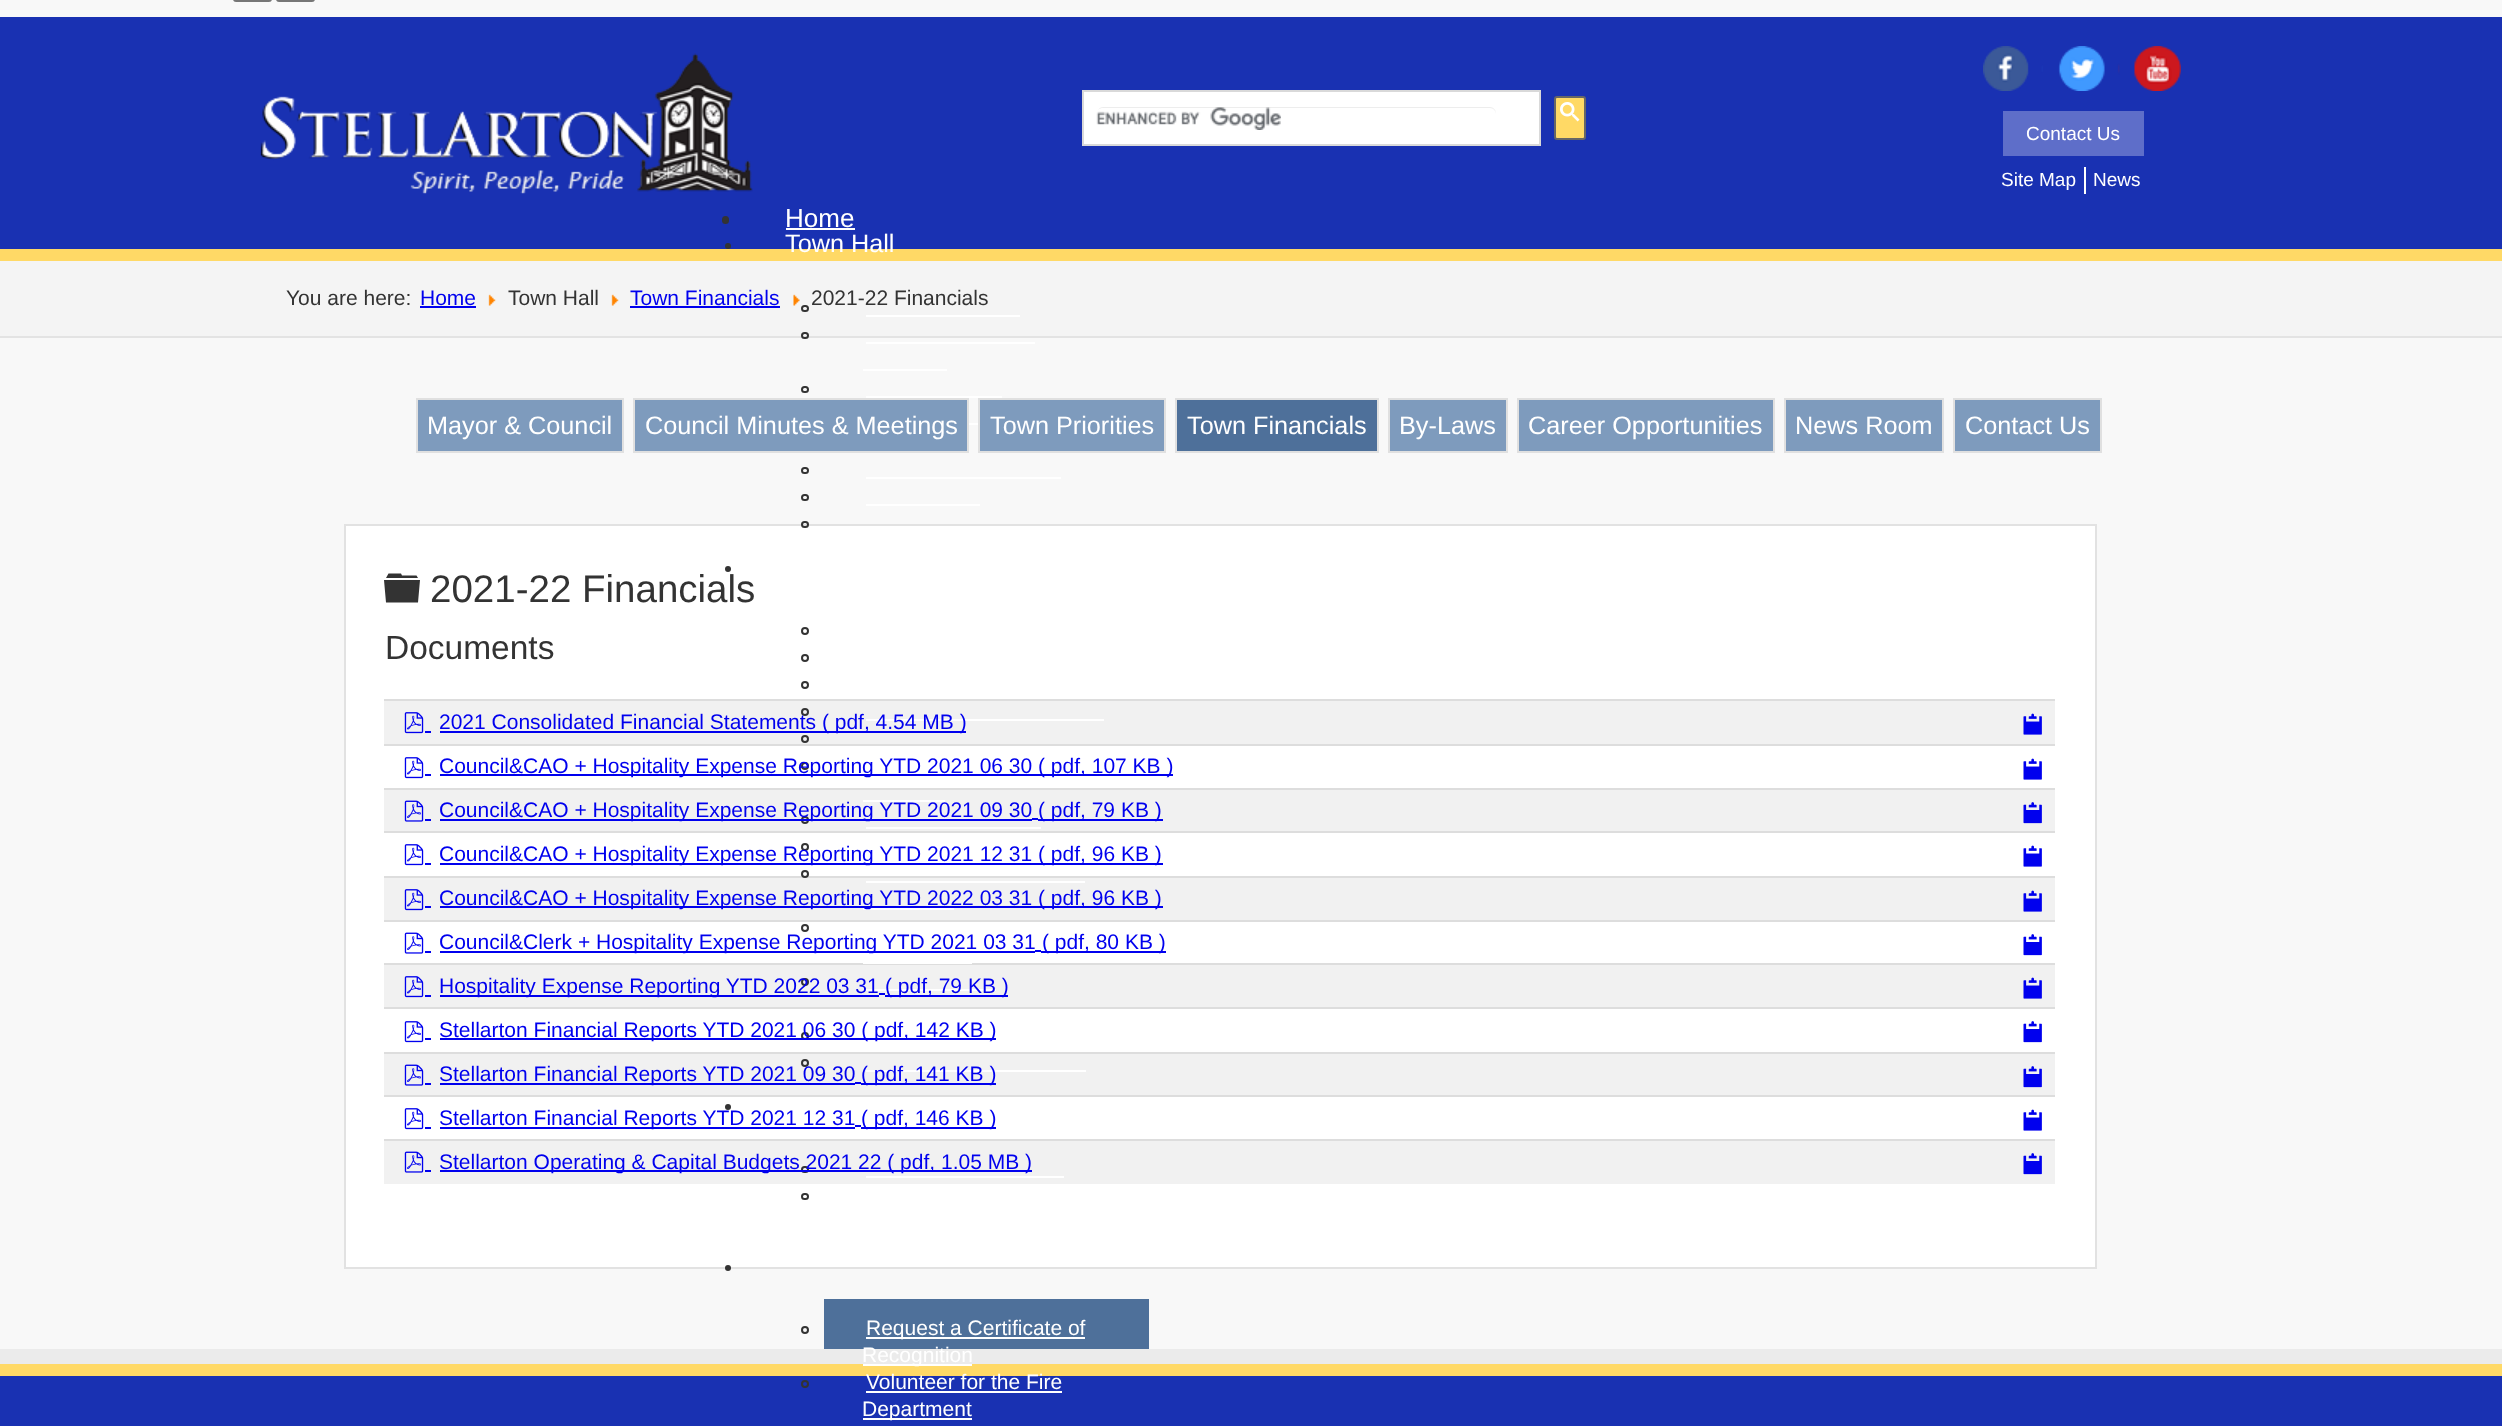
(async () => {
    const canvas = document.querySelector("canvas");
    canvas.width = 2502;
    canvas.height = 1426;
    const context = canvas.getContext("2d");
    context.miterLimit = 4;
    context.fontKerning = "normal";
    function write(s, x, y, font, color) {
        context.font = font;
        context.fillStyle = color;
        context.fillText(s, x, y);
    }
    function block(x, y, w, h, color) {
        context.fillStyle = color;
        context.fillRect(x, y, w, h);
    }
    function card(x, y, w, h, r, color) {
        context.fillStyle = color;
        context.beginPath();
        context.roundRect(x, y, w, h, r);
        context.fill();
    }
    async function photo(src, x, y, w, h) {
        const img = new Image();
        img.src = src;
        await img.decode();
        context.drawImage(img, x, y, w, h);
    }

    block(0, 0, 2502, 1426, "rgb(248, 248, 248)");
    context.beginPath();
    context.roundRect(234, -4, 37, 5, 2);
    context.strokeStyle = "rgb(118, 118, 118)";
    context.lineWidth = 2;
    context.stroke();
    context.beginPath();
    context.roundRect(277, -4, 37, 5, 2);
    context.stroke();
    block(0, 261, 2502, 75, "rgb(244, 244, 244)");
    block(0, 336, 2502, 2, "rgb(227, 227, 227)");
    write("You are here:", 286, 305, "21px Liberation Sans", "rgb(51, 51, 51)");
    write("Home", 420, 305, "21px Liberation Sans", "rgb(0, 0, 238)");
    block(420, 306, 56, 2, "rgb(0, 0, 238)");
    await photo("media/1.png", 488, 294, 8, 12);
    write("Town Hall", 508, 305, "21px Liberation Sans", "rgb(51, 51, 51)");
    await photo("media/2.png", 611, 294, 8, 12);
    write("Town Financials", 630, 305, "21px Liberation Sans", "rgb(0, 0, 238)");
    block(630, 306, 150, 2, "rgb(0, 0, 238)");
    await photo("media/3.png", 793, 294, 7, 12);
    write("2021-22 Financials", 811, 305, "21px Liberation Sans", "rgb(51, 51, 51)");
    block(0, 17, 2502, 232, "rgb(25, 49, 178)");
    block(0, 249, 2502, 12, "rgb(255, 217, 102)");
    await photo("media/4.png", 1983, 46, 60, 45);
    await photo("media/5.png", 2058, 46, 62, 45);
    await photo("media/6.png", 2134, 46, 47, 45);
    context.fillStyle = "rgb(255, 255, 255)";
    context.beginPath();
    context.rect(1083, 91, 457, 54);
    context.fill();
    context.strokeStyle = "rgb(217, 217, 217)";
    context.stroke();
    await photo("media/7.png", 1096, 107, 185, 23);
    context.fillStyle = "rgba(0, 0, 0, 0.07)";
    context.beginPath();
    context.moveTo(1102, 108);
    context.lineTo(1490, 108);
    context.bezierCurveTo(1493, 108, 1496, 111, 1496, 114);
    context.lineTo(1496, 113);
    context.bezierCurveTo(1496, 110, 1493, 107, 1490, 107);
    context.lineTo(1103, 107);
    context.bezierCurveTo(1101, 107, 1099, 108, 1098, 110);
    context.bezierCurveTo(1099, 109, 1101, 108, 1102, 108);
    context.closePath();
    context.fill();
    context.fillStyle = "rgb(255, 217, 101)";
    context.beginPath();
    context.roundRect(1555, 97, 30, 42, 2);
    context.fill();
    context.strokeStyle = "rgb(102, 102, 102)";
    context.stroke();
    await photo("media/8.png", 1560, 102, 20, 20);
    await photo("media/9.png", 260, 53, 493, 141);
    block(2003, 111, 141, 45, "rgb(94, 110, 201)");
    write("Contact Us", 2026, 140, "19px Liberation Sans", "rgb(255, 255, 255)");
    block(2084, 167, 2, 27, "rgb(255, 255, 255)");
    write("Site Map", 2001, 186, "19px Liberation Sans", "rgb(255, 255, 255)");
    write("News", 2093, 186, "19px Liberation Sans", "rgb(255, 255, 255)");
    card(722, 216, 7, 8, 3.5, "rgb(51, 51, 51)");
    write("Home", 785, 227, "26px Liberation Sans", "rgb(255, 255, 255)");
    block(786, 228, 69, 2, "rgb(255, 255, 255)");
    context.fillStyle = "rgb(51, 51, 51)";
    context.beginPath();
    context.arc(728, 246, 3, 0, Math.PI * 2);
    context.fill();
    write("Town Hall", 785, 252, "25.25px Liberation Sans", "rgb(255, 255, 255)");
    context.beginPath();
    context.roundRect(802, 306, 6, 5, 2.5);
    context.strokeStyle = "rgb(51, 51, 51)";
    context.stroke();
    block(866, 315, 154, 2, "rgb(255, 255, 255)");
    context.beginPath();
    context.roundRect(802, 333, 6, 5, 2.5);
    context.stroke();
    block(866, 342, 169, 2, "rgb(255, 255, 255)");
    block(863, 369, 84, 2, "rgb(255, 255, 255)");
    context.beginPath();
    context.roundRect(802, 387, 6, 5, 2.5);
    context.stroke();
    block(866, 396, 136, 2, "rgb(255, 255, 255)");
    block(969, 423, 9, 2, "rgb(255, 255, 255)");
    context.beginPath();
    context.roundRect(802, 468, 6, 5, 2.5);
    context.stroke();
    block(866, 477, 195, 2, "rgb(255, 255, 255)");
    context.beginPath();
    context.roundRect(802, 495, 6, 5, 2.5);
    context.stroke();
    block(866, 504, 114, 2, "rgb(255, 255, 255)");
    context.beginPath();
    context.rect(345, 525, 1751, 743);
    context.fill();
    context.strokeStyle = "rgb(226, 226, 226)";
    context.stroke();
    context.beginPath();
    context.roundRect(802, 522, 6, 5, 2.5);
    context.strokeStyle = "rgb(51, 51, 51)";
    context.stroke();
    context.fillStyle = "rgb(51, 51, 51)";
    context.beginPath();
    context.arc(728, 569, 3, 0, Math.PI * 2);
    context.fill();
    context.beginPath();
    context.arc(805, 631, 3, 0, Math.PI * 2);
    context.stroke();
    context.beginPath();
    context.arc(805, 658, 3, 0, Math.PI * 2);
    context.stroke();
    context.beginPath();
    context.arc(805, 685, 3, 0, Math.PI * 2);
    context.stroke();
    block(384, 701, 1671, 43, "rgb(241, 241, 241)");
    context.beginPath();
    context.arc(805, 712, 3, 0, Math.PI * 2);
    context.stroke();
    block(866, 719, 238, 2, "rgb(255, 255, 255)");
    context.beginPath();
    context.arc(805, 739, 3, 0, Math.PI * 2);
    context.stroke();
    context.beginPath();
    context.arc(805, 766, 3, 0, Math.PI * 2);
    context.stroke();
    block(384, 790, 1671, 41, "rgb(241, 241, 241)");
    block(863, 800, 82, 2, "rgb(255, 255, 255)");
    context.beginPath();
    context.arc(805, 820, 3, 0, Math.PI * 2);
    context.stroke();
    block(866, 827, 175, 2, "rgb(255, 255, 255)");
    context.beginPath();
    context.arc(805, 847, 3, 0, Math.PI * 2);
    context.stroke();
    block(384, 876, 1671, 2, "rgb(221, 221, 221)");
    context.beginPath();
    context.arc(805, 874, 3, 0, Math.PI * 2);
    context.stroke();
    block(384, 878, 1671, 42, "rgb(241, 241, 241)");
    block(866, 881, 219, 2, "rgb(255, 255, 255)");
    block(863, 908, 91, 2, "rgb(255, 255, 255)");
    context.beginPath();
    context.arc(805, 928, 3, 0, Math.PI * 2);
    context.stroke();
    block(384, 963, 1671, 2, "rgb(221, 221, 221)");
    block(863, 963, 109, 1, "rgb(255, 255, 255)");
    block(384, 965, 1671, 42, "rgb(241, 241, 241)");
    context.beginPath();
    context.arc(805, 982, 3, 0, Math.PI * 2);
    context.stroke();
    block(866, 989, 130, 2, "rgb(255, 255, 255)");
    context.beginPath();
    context.arc(805, 1036, 3, 0, Math.PI * 2);
    context.stroke();
    block(384, 1054, 1671, 41, "rgb(241, 241, 241)");
    context.beginPath();
    context.arc(805, 1063, 3, 0, Math.PI * 2);
    context.stroke();
    block(866, 1070, 220, 2, "rgb(255, 255, 255)");
    context.fillStyle = "rgb(51, 51, 51)";
    context.beginPath();
    context.arc(728, 1107, 3, 0, Math.PI * 2);
    context.fill();
    block(384, 1141, 1671, 43, "rgb(241, 241, 241)");
    context.beginPath();
    context.roundRect(802, 1167, 6, 5, 2.5);
    context.stroke();
    block(866, 1176, 198, 2, "rgb(255, 255, 255)");
    context.beginPath();
    context.roundRect(802, 1194, 6, 5, 2.5);
    context.stroke();
    context.fillStyle = "rgb(51, 51, 51)";
    context.beginPath();
    context.arc(728, 1268, 3, 0, Math.PI * 2);
    context.fill();
    block(824, 1299, 325, 50, "rgb(78, 112, 154)");
    context.beginPath();
    context.arc(805, 1330, 3, 0, Math.PI * 2);
    context.stroke();
    block(866, 1337, 219, 2, "rgb(255, 255, 255)");
    write("Request a Certificate of", 866, 1335, "21px Liberation Sans", "rgb(255, 255, 255)");
    block(0, 1364, 2502, 12, "rgb(255, 217, 102)");
    block(863, 1364, 109, 2, "rgb(255, 255, 255)");
    block(0, 1349, 2502, 15, "rgb(235, 235, 235)");
    write("Recognition", 862, 1362, "21px Liberation Sans", "rgb(255, 255, 255)");
    block(0, 1376, 2502, 50, "rgb(25, 49, 178)");
    context.beginPath();
    context.arc(805, 1384, 3, 0, Math.PI * 2);
    context.stroke();
    write("Volunteer for the Fire", 866, 1389, "21px Liberation Sans", "rgb(255, 255, 255)");
    block(866, 1391, 196, 2, "rgb(255, 255, 255)");
    block(863, 1418, 109, 2, "rgb(255, 255, 255)");
    write("Department", 862, 1416, "21px Liberation Sans", "rgb(255, 255, 255)");
    context.fillStyle = "rgb(126, 155, 189)";
    context.beginPath();
    context.rect(417, 399, 206, 53);
    context.fill();
    context.strokeStyle = "rgb(224, 224, 224)";
    context.stroke();
    write("Mayor & Council", 427, 434, "25.25px Liberation Sans", "rgb(255, 255, 255)");
    context.fillStyle = "rgb(126, 155, 189)";
    context.beginPath();
    context.rect(634, 399, 334, 53);
    context.fill();
    context.stroke();
    write("Council Minutes & Meetings", 645, 434, "25.25px Liberation Sans", "rgb(255, 255, 255)");
    context.fillStyle = "rgb(126, 155, 189)";
    context.beginPath();
    context.rect(979, 399, 186, 53);
    context.fill();
    context.stroke();
    write("Town Priorities", 990, 434, "25.25px Liberation Sans", "rgb(255, 255, 255)");
    context.fillStyle = "rgb(78, 112, 154)";
    context.beginPath();
    context.rect(1176, 399, 202, 53);
    context.fill();
    context.stroke();
    write("Town Financials", 1187, 434, "25.25px Liberation Sans", "rgb(255, 255, 255)");
    context.fillStyle = "rgb(126, 155, 189)";
    context.beginPath();
    context.rect(1389, 399, 118, 53);
    context.fill();
    context.stroke();
    write("By-Laws", 1399, 434, "25.25px Liberation Sans", "rgb(255, 255, 255)");
    context.fillStyle = "rgb(126, 155, 189)";
    context.beginPath();
    context.rect(1518, 399, 256, 53);
    context.fill();
    context.stroke();
    write("Career Opportunities", 1528, 434, "25.25px Liberation Sans", "rgb(255, 255, 255)");
    context.fillStyle = "rgb(126, 155, 189)";
    context.beginPath();
    context.rect(1785, 399, 158, 53);
    context.fill();
    context.stroke();
    write("News Room", 1795, 434, "25.25px Liberation Sans", "rgb(255, 255, 255)");
    context.fillStyle = "rgb(126, 155, 189)";
    context.beginPath();
    context.rect(1954, 399, 147, 53);
    context.fill();
    context.stroke();
    write("Contact Us", 1965, 434, "25.25px Liberation Sans", "rgb(255, 255, 255)");
    context.fillStyle = "rgb(51, 51, 51)";
    context.beginPath();
    context.moveTo(384, 580);
    context.lineTo(420, 580);
    context.lineTo(418, 602.5);
    context.lineTo(386, 602.5);
    context.closePath();
    context.moveTo(416.5, 575.5);
    context.lineTo(418, 578);
    context.lineTo(386, 578);
    context.lineTo(388.5, 573.5);
    context.lineTo(401, 573.5);
    context.lineTo(402, 575.5);
    context.closePath();
    context.fill();
    write("2021-22 Financials", 430, 602, "38.5px Liberation Sans", "rgb(51, 51, 51)");
    write("Documents", 385, 659, "33.5px Liberation Sans", "rgb(51, 51, 51)");
    block(384, 699, 1671, 2, "rgb(221, 221, 221)");
    await photo("media/10.png", 2023, 713, 19, 22);
    await photo("media/11.png", 404, 712, 20, 22);
    block(425, 731, 6, 2, "rgb(0, 0, 238)");
    block(440, 731, 526, 2, "rgb(0, 0, 238)");
    write("2021 Consolidated Financial Statements ( pdf, 4.54 MB )", 439, 729, "21px Liberation Sans", "rgb(0, 0, 238)");
    block(384, 744, 1671, 2, "rgb(221, 221, 221)");
    await photo("media/12.png", 2023, 758, 19, 22);
    await photo("media/13.png", 404, 757, 20, 22);
    block(425, 774, 6, 2, "rgb(0, 0, 238)");
    block(440, 774, 733, 2, "rgb(0, 0, 238)");
    write("Council&CAO + Hospitality Expense Reporting YTD 2021 06 30 ( pdf, 107 KB )", 439, 773, "21px Liberation Sans", "rgb(0, 0, 238)");
    block(384, 788, 1671, 2, "rgb(221, 221, 221)");
    await photo("media/14.png", 2023, 802, 19, 22);
    await photo("media/15.png", 404, 800, 20, 22);
    block(425, 819, 6, 2, "rgb(0, 0, 238)");
    block(440, 819, 592, 2, "rgb(0, 0, 238)");
    write("Council&CAO + Hospitality Expense Reporting YTD 2021 09 30", 439, 817, "21px Liberation Sans", "rgb(0, 0, 238)");
    block(1032, 818, 6, 2, "rgb(0, 0, 238)");
    block(1038, 819, 125, 2, "rgb(0, 0, 238)");
    write("( pdf, 79 KB )", 1038, 817, "21px Liberation Sans", "rgb(0, 0, 238)");
    block(384, 831, 1671, 2, "rgb(221, 221, 221)");
    await photo("media/12.png", 2023, 845, 19, 22);
    await photo("media/13.png", 404, 844, 20, 22);
    block(425, 863, 6, 2, "rgb(0, 0, 238)");
    block(440, 863, 723, 2, "rgb(0, 0, 238)");
    write("Council&CAO + Hospitality Expense Reporting YTD 2021 12 31 ( pdf, 96 KB )", 439, 861, "21px Liberation Sans", "rgb(0, 0, 238)");
    await photo("media/10.png", 2023, 890, 19, 22);
    await photo("media/11.png", 404, 889, 20, 22);
    block(425, 906, 6, 2, "rgb(0, 0, 238)");
    block(440, 906, 723, 2, "rgb(0, 0, 238)");
    write("Council&CAO + Hospitality Expense Reporting YTD 2022 03 31 ( pdf, 96 KB )", 439, 905, "21px Liberation Sans", "rgb(0, 0, 238)");
    block(384, 920, 1671, 2, "rgb(221, 221, 221)");
    await photo("media/16.png", 2023, 934, 19, 22);
    await photo("media/17.png", 404, 932, 20, 22);
    block(425, 951, 6, 2, "rgb(0, 0, 238)");
    block(440, 951, 595, 2, "rgb(0, 0, 238)");
    write("Council&Clerk + Hospitality Expense Reporting YTD 2021 03 31", 439, 949, "21px Liberation Sans", "rgb(0, 0, 238)");
    block(1035, 950, 6, 2, "rgb(0, 0, 238)");
    block(1041, 951, 125, 2, "rgb(0, 0, 238)");
    write("( pdf, 80 KB )", 1042, 949, "21px Liberation Sans", "rgb(0, 0, 238)");
    await photo("media/10.png", 2023, 977, 19, 22);
    await photo("media/11.png", 404, 976, 20, 22);
    block(425, 995, 6, 2, "rgb(0, 0, 238)");
    block(440, 995, 439, 2, "rgb(0, 0, 238)");
    write("Hospitality Expense Reporting YTD 2022 03 31", 439, 993, "21px Liberation Sans", "rgb(0, 0, 238)");
    block(879, 993, 6, 2, "rgb(0, 0, 238)");
    block(885, 995, 123, 2, "rgb(0, 0, 238)");
    write("( pdf, 79 KB )", 885, 993, "21px Liberation Sans", "rgb(0, 0, 238)");
    block(384, 1007, 1671, 2, "rgb(221, 221, 221)");
    await photo("media/16.png", 2023, 1021, 19, 22);
    await photo("media/13.png", 404, 1021, 20, 22);
    block(425, 1038, 6, 2, "rgb(0, 0, 238)");
    block(440, 1038, 556, 2, "rgb(0, 0, 238)");
    write("Stellarton Financial Reports YTD 2021 06 30 ( pdf, 142 KB )", 439, 1037, "21px Liberation Sans", "rgb(0, 0, 238)");
    block(384, 1052, 1671, 2, "rgb(221, 221, 221)");
    await photo("media/14.png", 2023, 1066, 19, 22);
    await photo("media/15.png", 404, 1064, 20, 22);
    block(425, 1083, 6, 2, "rgb(0, 0, 238)");
    block(440, 1083, 415, 2, "rgb(0, 0, 238)");
    write("Stellarton Financial Reports YTD 2021 09 30", 439, 1081, "21px Liberation Sans", "rgb(0, 0, 238)");
    block(855, 1082, 6, 2, "rgb(0, 0, 238)");
    block(861, 1083, 135, 2, "rgb(0, 0, 238)");
    write("( pdf, 141 KB )", 861, 1081, "21px Liberation Sans", "rgb(0, 0, 238)");
    block(384, 1095, 1671, 2, "rgb(221, 221, 221)");
    await photo("media/12.png", 2023, 1109, 19, 22);
    await photo("media/13.png", 404, 1108, 20, 22);
    block(425, 1127, 6, 2, "rgb(0, 0, 238)");
    block(440, 1127, 415, 2, "rgb(0, 0, 238)");
    write("Stellarton Financial Reports YTD 2021 12 31", 439, 1125, "21px Liberation Sans", "rgb(0, 0, 238)");
    block(855, 1125, 6, 2, "rgb(0, 0, 238)");
    block(861, 1127, 135, 2, "rgb(0, 0, 238)");
    write("( pdf, 146 KB )", 861, 1125, "21px Liberation Sans", "rgb(0, 0, 238)");
    block(384, 1139, 1671, 2, "rgb(221, 221, 221)");
    await photo("media/14.png", 2023, 1153, 19, 22);
    await photo("media/15.png", 404, 1151, 20, 22);
    block(425, 1170, 6, 2, "rgb(0, 0, 238)");
    block(440, 1170, 592, 2, "rgb(0, 0, 238)");
    write("Stellarton Operating & Capital Budgets 2021 22 ( pdf, 1.05 MB )", 439, 1169, "21px Liberation Sans", "rgb(0, 0, 238)");
})();
